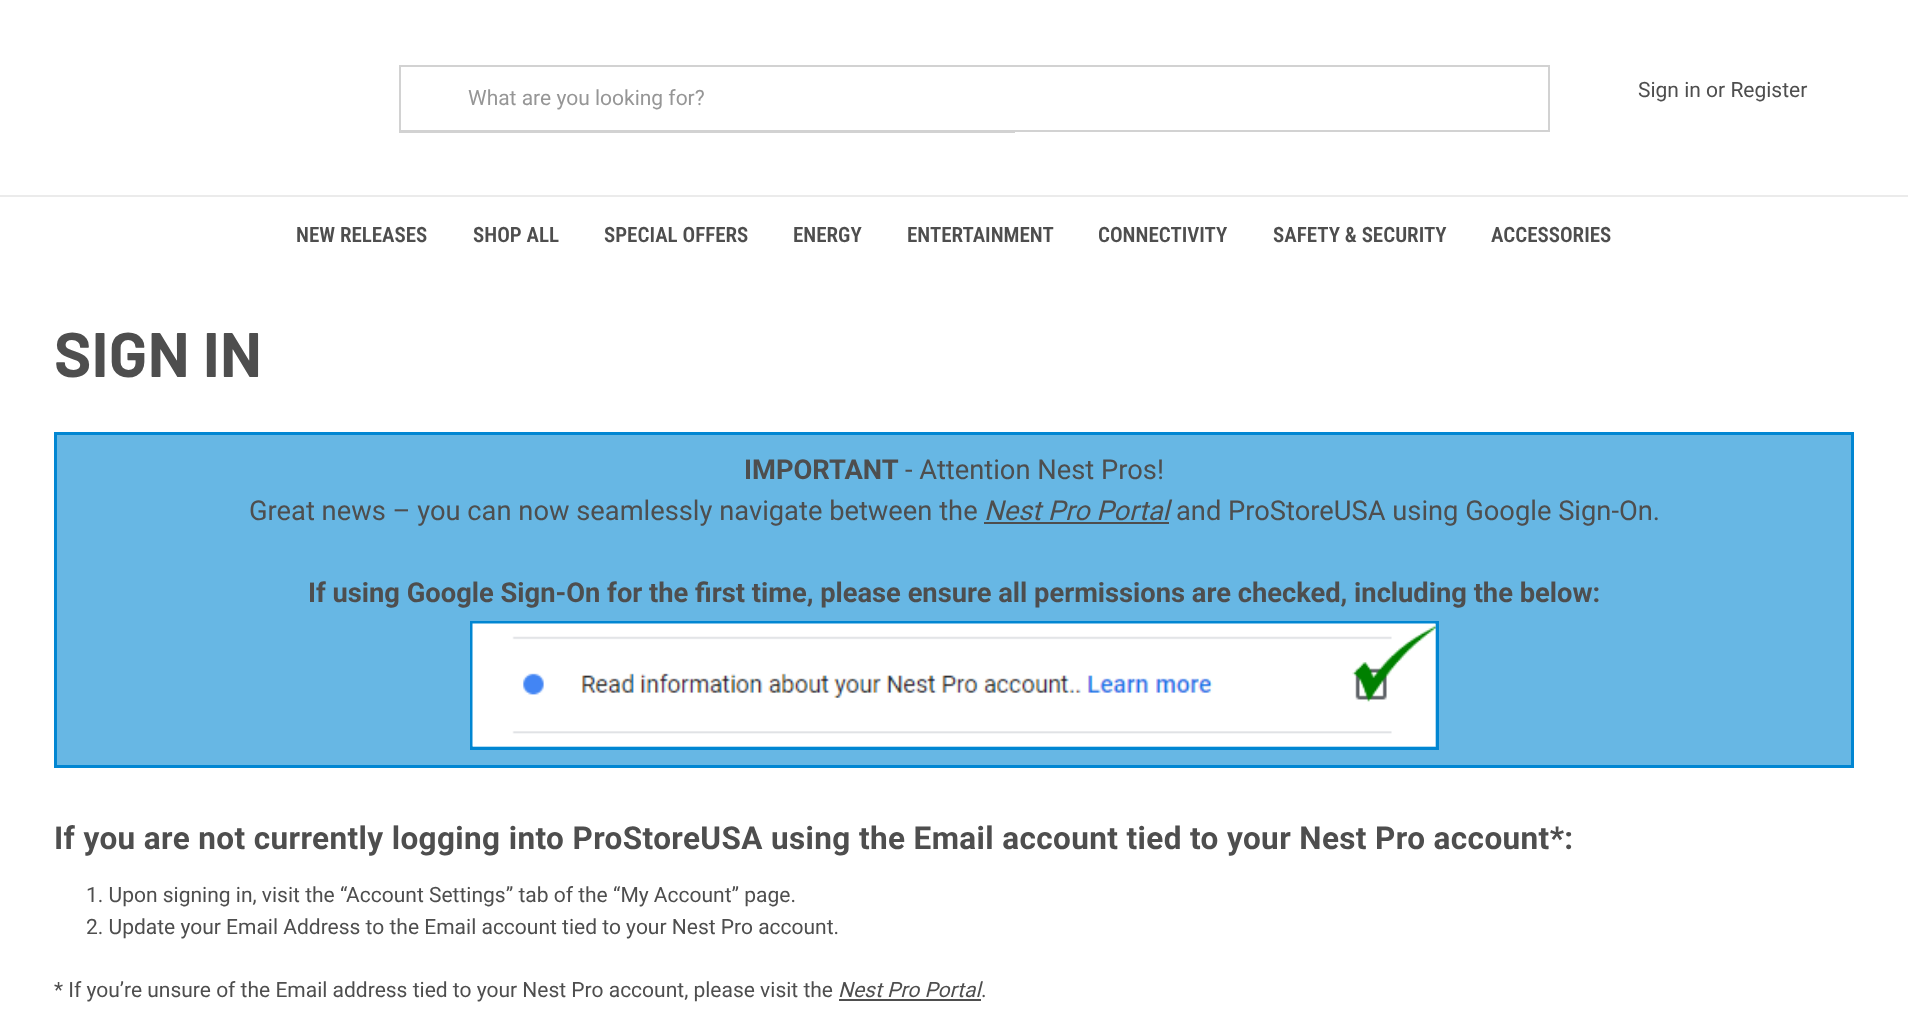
(async () => {
    const canvas = document.querySelector("canvas");
    canvas.width = 1908;
    canvas.height = 1022;
    const context = canvas.getContext("2d");
    context.miterLimit = 4;
    context.fontKerning = "normal";
    function write(s, x, y, font, color) {
        context.font = font;
        context.fillStyle = color;
        context.fillText(s, x, y);
    }
    function block(x, y, w, h, color) {
        context.fillStyle = color;
        context.fillRect(x, y, w, h);
    }
    async function photo(src, x, y, w, h) {
        const img = new Image();
        img.src = src;
        await img.decode();
        context.drawImage(img, x, y, w, h);
    }

    block(0, 0, 1908, 1022, "rgb(255, 255, 255)");
    context.strokeStyle = "rgb(210, 210, 210)";
    context.lineWidth = 2;
    context.strokeRect(400, 66, 1149, 65);
    write("What are you looking for?", 468, 105, "21px Roboto", "rgb(150, 150, 150)");
    block(399, 132, 616, 1, "rgb(210, 210, 210)");
    write("Sign in or Register", 1638, 97, "21px Roboto", "rgb(78, 78, 78)");
    block(0, 195, 1908, 2, "rgb(235, 235, 235)");
    write("NEW RELEASES", 296, 242, "600 21px Roboto Condensed", "rgb(78, 78, 78)");
    write("SHOP ALL", 473, 242, "600 21px Roboto Condensed", "rgb(78, 78, 78)");
    write("SPECIAL OFFERS", 604, 242, "600 21px Roboto Condensed", "rgb(78, 78, 78)");
    write("ENERGY", 793, 242, "600 21px Roboto Condensed", "rgb(78, 78, 78)");
    write("ENTERTAINMENT", 907, 242, "600 21px Roboto Condensed", "rgb(78, 78, 78)");
    write("CONNECTIVITY", 1098, 242, "600 21px Roboto Condensed", "rgb(78, 78, 78)");
    write("SAFETY & SECURITY", 1273, 242, "600 21px Roboto Condensed", "rgb(78, 78, 78)");
    write("ACCESSORIES", 1491, 242, "600 21px Roboto Condensed", "rgb(78, 78, 78)");
    context.letterSpacing = "0.38px";
    write("SIGN IN", 54, 377, "bold 63px Barlow", "rgb(78, 78, 78)");
    context.fillStyle = "rgb(103, 183, 228)";
    context.beginPath();
    context.rect(55.5, 433.5, 1797, 333);
    context.fill();
    context.strokeStyle = "rgb(1, 134, 210)";
    context.lineWidth = 3;
    context.stroke();
    context.letterSpacing = "0px";
    write("IMPORTANT", 744, 479, "bold 27.3px Roboto", "rgb(78, 78, 78)");
    write("- Attention Nest Pros!", 905, 479, "27.3px Roboto", "rgb(78, 78, 78)");
    write("Great news – you can now seamlessly navigate between the", 249, 520, "27.3px Roboto", "rgb(78, 78, 78)");
    write("Nest Pro Portal", 984, 520, "italic 27.3px Roboto", "rgb(78, 78, 78)");
    block(984, 522, 185, 2, "rgb(78, 78, 78)");
    write("and ProStoreUSA using Google Sign-On.", 1176, 520, "27.3px Roboto", "rgb(78, 78, 78)");
    write("If using Google Sign-On for the first time, please ensure all permissions are checked, including the below:", 308, 602, "bold 27.3px Roboto", "rgb(78, 78, 78)");
    context.strokeRect(471.5, 622.5, 966, 126);
    await photo("media/1.png", 472, 623, 964, 124);
    context.letterSpacing = "0.38px";
    write("If you are not currently logging into ProStoreUSA using the Email account tied to your Nest Pro account*:", 54, 849, "bold 31.5px Roboto", "rgb(78, 78, 78)");
    context.letterSpacing = "0px";
    write("1. Upon signing in, visit the “Account Settings” tab of the “My Account” page.", 86, 902, "21px Roboto", "rgb(78, 78, 78)");
    write("2. Update your Email Address to the Email account tied to your Nest Pro account.", 86, 934, "21px Roboto", "rgb(78, 78, 78)");
    write("* If you’re unsure of the Email address tied to your Nest Pro account, please visit the", 54, 997, "21px Roboto", "rgb(78, 78, 78)");
    write("Nest Pro Portal", 838, 997, "italic 21px Roboto", "rgb(78, 78, 78)");
    block(839, 999, 142, 2, "rgb(78, 78, 78)");
    write(".", 981, 997, "21px Roboto", "rgb(78, 78, 78)");
})();
